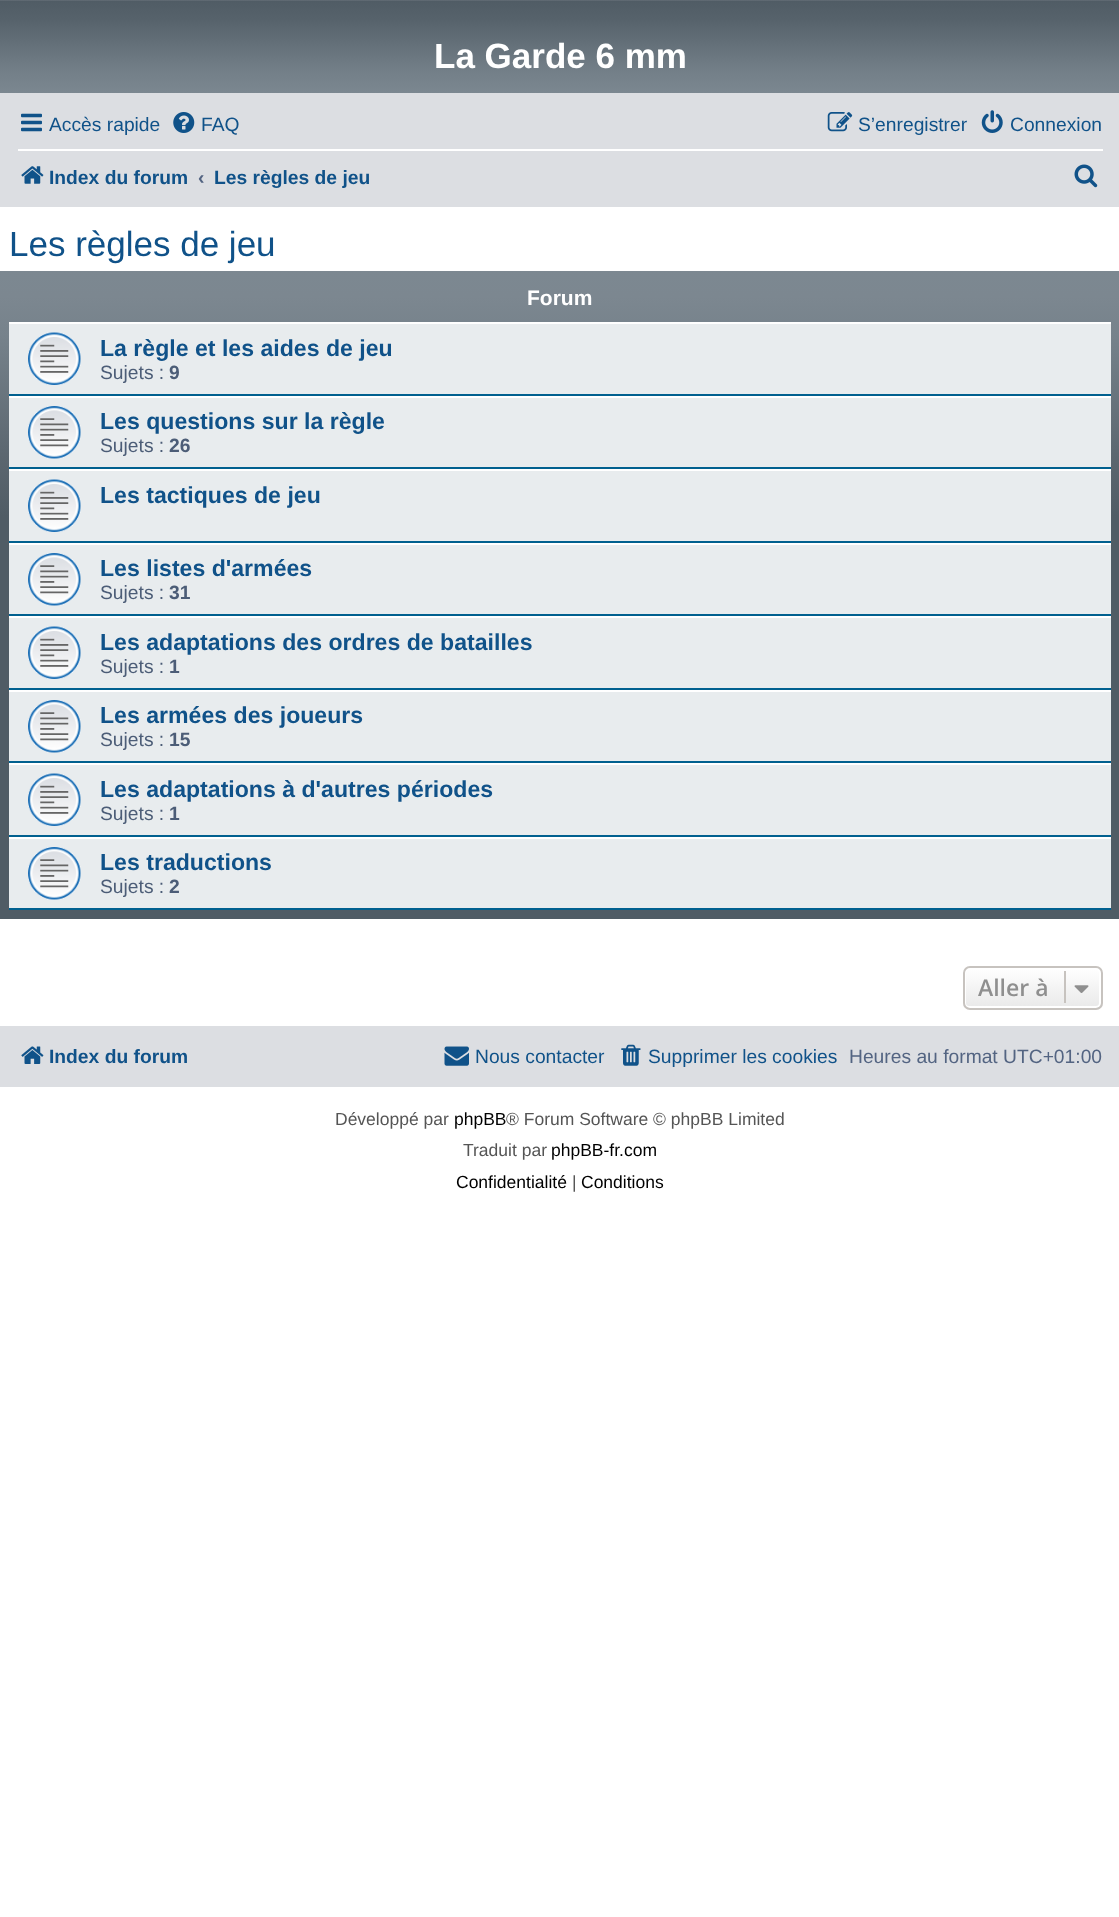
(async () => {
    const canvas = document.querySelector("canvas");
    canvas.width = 1119;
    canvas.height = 1917;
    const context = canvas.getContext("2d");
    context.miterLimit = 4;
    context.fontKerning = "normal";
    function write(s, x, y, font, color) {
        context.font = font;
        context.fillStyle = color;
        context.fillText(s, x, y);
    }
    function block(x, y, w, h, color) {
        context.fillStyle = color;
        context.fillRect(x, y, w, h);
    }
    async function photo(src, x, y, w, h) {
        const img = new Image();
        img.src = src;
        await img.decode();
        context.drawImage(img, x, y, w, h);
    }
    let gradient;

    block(0, 0, 1119, 1917, "rgb(255, 255, 255)");
    gradient = context.createLinearGradient(560, 0, 560, 95);
    gradient.addColorStop(0, "rgb(110, 119, 127)");
    gradient.addColorStop(0.01, "rgb(80, 92, 101)");
    gradient.addColorStop(0.2, "rgb(86, 98, 107)");
    gradient.addColorStop(0.75, "rgb(115, 127, 136)");
    gradient.addColorStop(1, "rgb(124, 136, 145)");
    context.fillStyle = gradient;
    context.fillRect(0, 0, 1119, 93);
    write("La Garde 6 mm", 434, 68, "bold 35px Liberation Sans", "rgb(255, 255, 255)");
    block(0, 93, 1119, 114, "rgb(220, 222, 226)");
    await photo("media/1.png", 21, 113, 21, 19);
    write("Accès rapide", 49, 131, "19.25px Liberation Sans", "rgb(16, 82, 137)");
    await photo("media/2.png", 173, 112, 22, 21);
    write("FAQ", 201, 131, "19.25px Liberation Sans", "rgb(16, 82, 137)");
    await photo("media/3.png", 827, 112, 26, 20);
    write("S’enregistrer", 858, 131, "19.25px Liberation Sans", "rgb(16, 82, 137)");
    await photo("media/4.png", 981, 110, 22, 23);
    write("Connexion", 1010, 131, "19.25px Liberation Sans", "rgb(16, 82, 137)");
    block(18, 149, 1085, 2, "rgb(255, 255, 255)");
    await photo("media/5.png", 21, 166, 23, 18);
    write("Index du forum", 49, 184, "bold 19.25px Liberation Sans", "rgb(16, 82, 137)");
    write("‹", 198, 184, "bold 19.25px Liberation Sans", "rgb(83, 100, 130)");
    write("Les règles de jeu", 214, 184, "bold 19.25px Liberation Sans", "rgb(16, 82, 137)");
    await photo("media/6.png", 1074, 164, 24, 24);
    write("Les règles de jeu", 9, 256, "35px Liberation Sans", "rgb(16, 82, 137)");
    gradient = context.createLinearGradient(560, 271, 560, 919);
    gradient.addColorStop(0, "rgb(124, 136, 145)");
    gradient.addColorStop(0.04, "rgb(124, 135, 144)");
    gradient.addColorStop(0.1, "rgb(118, 130, 139)");
    gradient.addColorStop(0.29, "rgb(91, 102, 111)");
    gradient.addColorStop(0.38, "rgb(80, 92, 101)");
    gradient.addColorStop(1, "rgb(80, 92, 101)");
    context.fillStyle = gradient;
    context.fillRect(0, 271, 1119, 648);
    write("Forum", 527, 305, "bold 21px Liberation Sans", "rgb(255, 255, 255)");
    block(9, 324, 1102, 70, "rgb(232, 236, 238)");
    block(9, 322, 1102, 2, "rgb(255, 255, 255)");
    block(9, 394, 1102, 2, "rgb(0, 96, 143)");
    await photo("media/7.png", 28, 332, 53, 53);
    write("La règle et les aides de jeu", 100, 356, "bold 23.1px Liberation Sans", "rgb(16, 82, 137)");
    write("Sujets :", 100, 379, "19.25px Liberation Sans", "rgb(76, 93, 119)");
    write("9", 169, 379, "bold 19.25px Liberation Sans", "rgb(76, 93, 119)");
    block(9, 398, 1102, 69, "rgb(232, 236, 238)");
    block(9, 396, 1102, 2, "rgb(255, 255, 255)");
    block(9, 467, 1102, 2, "rgb(0, 96, 143)");
    await photo("media/8.png", 28, 406, 53, 53);
    write("Les questions sur la règle", 100, 429, "bold 23.1px Liberation Sans", "rgb(16, 82, 137)");
    write("Sujets :", 100, 452, "19.25px Liberation Sans", "rgb(76, 93, 119)");
    write("26", 169, 452, "bold 19.25px Liberation Sans", "rgb(76, 93, 119)");
    block(9, 471, 1102, 70, "rgb(232, 236, 238)");
    block(9, 469, 1102, 2, "rgb(255, 255, 255)");
    block(9, 541, 1102, 2, "rgb(0, 96, 143)");
    await photo("media/7.png", 28, 479, 53, 53);
    write("Les tactiques de jeu", 100, 503, "bold 23.1px Liberation Sans", "rgb(16, 82, 137)");
    block(9, 545, 1102, 69, "rgb(232, 236, 238)");
    block(9, 543, 1102, 2, "rgb(255, 255, 255)");
    block(9, 614, 1102, 2, "rgb(0, 96, 143)");
    await photo("media/8.png", 28, 553, 53, 53);
    write("Les listes d'armées", 100, 576, "bold 23.1px Liberation Sans", "rgb(16, 82, 137)");
    write("Sujets :", 100, 599, "19.25px Liberation Sans", "rgb(76, 93, 119)");
    write("31", 169, 599, "bold 19.25px Liberation Sans", "rgb(76, 93, 119)");
    block(9, 618, 1102, 70, "rgb(232, 236, 238)");
    block(9, 616, 1102, 2, "rgb(255, 255, 255)");
    block(9, 688, 1102, 2, "rgb(0, 96, 143)");
    await photo("media/7.png", 28, 626, 53, 53);
    write("Les adaptations des ordres de batailles", 100, 650, "bold 23.1px Liberation Sans", "rgb(16, 82, 137)");
    write("Sujets :", 100, 673, "19.25px Liberation Sans", "rgb(76, 93, 119)");
    write("1", 169, 673, "bold 19.25px Liberation Sans", "rgb(76, 93, 119)");
    block(9, 692, 1102, 69, "rgb(232, 236, 238)");
    block(9, 690, 1102, 2, "rgb(255, 255, 255)");
    block(9, 761, 1102, 2, "rgb(0, 96, 143)");
    await photo("media/8.png", 28, 700, 53, 53);
    write("Les armées des joueurs", 100, 723, "bold 23.1px Liberation Sans", "rgb(16, 82, 137)");
    write("Sujets :", 100, 746, "19.25px Liberation Sans", "rgb(76, 93, 119)");
    write("15", 169, 746, "bold 19.25px Liberation Sans", "rgb(76, 93, 119)");
    block(9, 765, 1102, 70, "rgb(232, 236, 238)");
    block(9, 763, 1102, 2, "rgb(255, 255, 255)");
    block(9, 835, 1102, 2, "rgb(0, 96, 143)");
    await photo("media/7.png", 28, 773, 53, 53);
    write("Les adaptations à d'autres périodes", 100, 797, "bold 23.1px Liberation Sans", "rgb(16, 82, 137)");
    write("Sujets :", 100, 820, "19.25px Liberation Sans", "rgb(76, 93, 119)");
    write("1", 169, 820, "bold 19.25px Liberation Sans", "rgb(76, 93, 119)");
    block(9, 839, 1102, 69, "rgb(232, 236, 238)");
    block(9, 837, 1102, 2, "rgb(255, 255, 255)");
    block(9, 908, 1102, 2, "rgb(0, 96, 143)");
    await photo("media/8.png", 28, 847, 53, 53);
    write("Les traductions", 100, 870, "bold 23.1px Liberation Sans", "rgb(16, 82, 137)");
    write("Sujets :", 100, 893, "19.25px Liberation Sans", "rgb(76, 93, 119)");
    write("2", 169, 893, "bold 19.25px Liberation Sans", "rgb(76, 93, 119)");
    context.save();
    context.beginPath();
    context.roundRect(963, 966, 140, 44, 7);
    context.clip();
    gradient = context.createLinearGradient(1033, 968, 1033, 1008);
    gradient.addColorStop(0, "rgb(255, 255, 255)");
    gradient.addColorStop(1, "rgb(233, 233, 233)");
    context.fillStyle = gradient;
    context.fillRect(963, 968, 140, 40);
    context.restore();
    context.beginPath();
    context.roundRect(965, 969, 135, 38, 4);
    context.strokeStyle = "rgb(255, 255, 255)";
    context.lineWidth = 2;
    context.stroke();
    context.beginPath();
    context.roundRect(964, 967, 138, 42, 6);
    context.strokeStyle = "rgb(199, 195, 191)";
    context.stroke();
    write("Aller à", 978, 996, "600 23px Open Sans", "rgb(143, 143, 143)");
    block(1064, 971, 2, 32, "rgb(199, 195, 191)");
    await photo("media/9.png", 1074, 985, 15, 8);
    block(0, 1026, 1119, 61, "rgb(220, 222, 226)");
    await photo("media/10.png", 21, 1046, 23, 18);
    write("Index du forum", 49, 1063, "bold 19.25px Liberation Sans", "rgb(16, 82, 137)");
    await photo("media/11.png", 444, 1046, 25, 20);
    write("Nous contacter", 475, 1063, "19.25px Liberation Sans", "rgb(16, 82, 137)");
    await photo("media/12.png", 621, 1044, 20, 22);
    write("Supprimer les cookies", 648, 1063, "19.25px Liberation Sans", "rgb(16, 82, 137)");
    write("Heures au format UTC+01:00", 849, 1063, "19.25px Liberation Sans", "rgb(83, 100, 130)");
    write("Développé par", 335, 1125, "17.5px Liberation Sans", "rgb(85, 85, 85)");
    write("phpBB", 454, 1125, "17.5px Liberation Sans", "rgb(0, 0, 0)");
    write("® Forum Software © phpBB Limited", 506, 1125, "17.5px Liberation Sans", "rgb(85, 85, 85)");
    write("Traduit par", 463, 1156, "17.5px Liberation Sans", "rgb(85, 85, 85)");
    write("phpBB-fr.com", 551, 1156, "17.5px Liberation Sans", "rgb(0, 0, 0)");
    write("Confidentialité", 456, 1188, "17.5px Liberation Sans", "rgb(0, 0, 0)");
    write("|", 572, 1188, "17.5px Liberation Sans", "rgb(85, 85, 85)");
    write("Conditions", 581, 1188, "17.5px Liberation Sans", "rgb(0, 0, 0)");
})();
